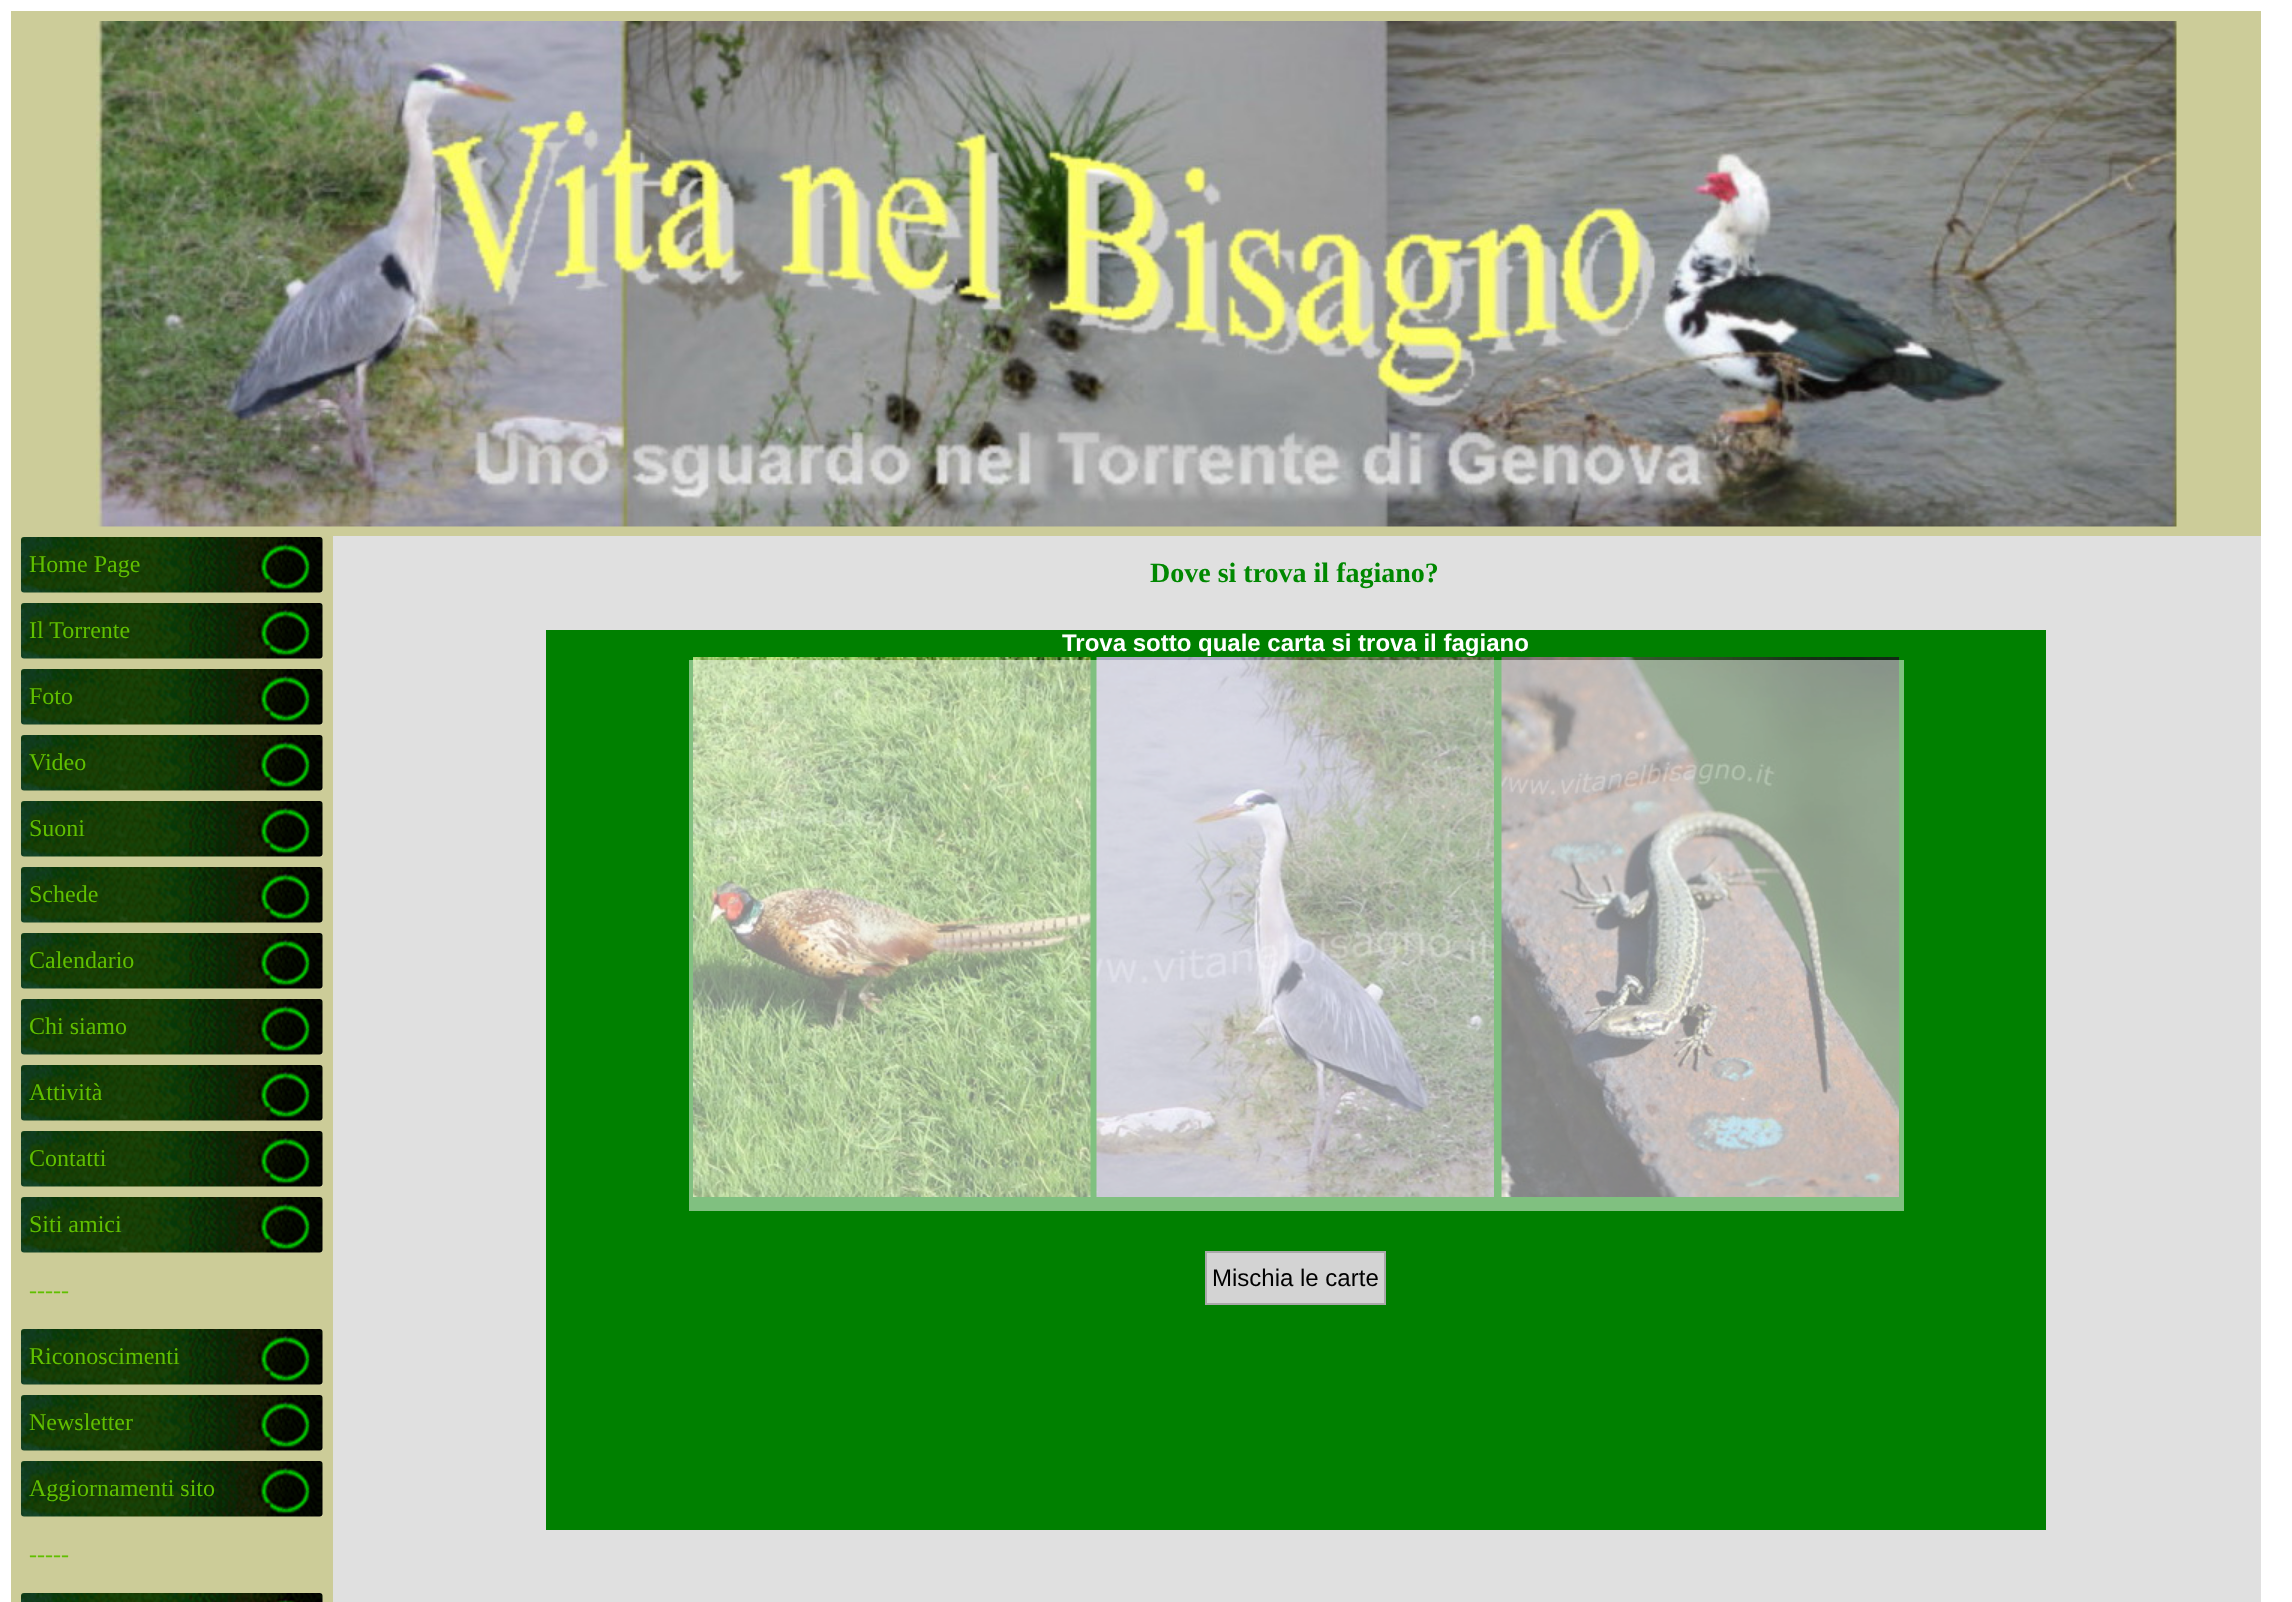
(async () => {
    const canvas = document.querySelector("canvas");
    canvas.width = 2292;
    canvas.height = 1602;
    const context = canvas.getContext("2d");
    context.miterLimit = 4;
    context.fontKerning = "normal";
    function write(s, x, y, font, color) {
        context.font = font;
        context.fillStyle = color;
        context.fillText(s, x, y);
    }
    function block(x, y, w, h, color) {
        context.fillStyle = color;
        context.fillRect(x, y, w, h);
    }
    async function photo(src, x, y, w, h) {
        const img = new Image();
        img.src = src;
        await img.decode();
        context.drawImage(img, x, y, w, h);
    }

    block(0, 0, 2292, 1602, "rgb(255, 255, 255)");
    block(11, 11, 2250, 525, "rgb(204, 204, 153)");
    await photo("media/1.png", 96, 21, 2081, 506);
    block(11, 536, 322, 1066, "rgb(204, 204, 152)");
    await photo("media/2.png", 21, 537, 302, 56);
    write("Home Page", 29, 572, "24px Liberation Serif", "rgb(96, 191, 0)");
    await photo("media/2.png", 21, 603, 302, 56);
    write("Il Torrente", 29, 638, "24px Liberation Serif", "rgb(96, 191, 0)");
    await photo("media/2.png", 21, 669, 302, 56);
    write("Foto", 29, 704, "24px Liberation Serif", "rgb(96, 191, 0)");
    await photo("media/2.png", 21, 735, 302, 56);
    write("Video", 29, 770, "24px Liberation Serif", "rgb(96, 191, 0)");
    await photo("media/2.png", 21, 801, 302, 56);
    write("Suoni", 29, 836, "24px Liberation Serif", "rgb(96, 191, 0)");
    await photo("media/2.png", 21, 867, 302, 56);
    write("Schede", 29, 902, "24px Liberation Serif", "rgb(96, 191, 0)");
    await photo("media/2.png", 21, 933, 302, 56);
    write("Calendario", 29, 968, "24px Liberation Serif", "rgb(96, 191, 0)");
    await photo("media/2.png", 21, 999, 302, 56);
    write("Chi siamo", 29, 1034, "24px Liberation Serif", "rgb(96, 191, 0)");
    await photo("media/2.png", 21, 1065, 302, 56);
    write("Attività", 29, 1100, "24px Liberation Serif", "rgb(96, 191, 0)");
    await photo("media/2.png", 21, 1131, 302, 56);
    write("Contatti", 29, 1166, "24px Liberation Serif", "rgb(96, 191, 0)");
    await photo("media/2.png", 21, 1197, 302, 56);
    write("Siti amici", 29, 1232, "24px Liberation Serif", "rgb(96, 191, 0)");
    write("-----", 29, 1298, "24px Liberation Serif", "rgb(96, 191, 0)");
    await photo("media/2.png", 21, 1329, 302, 56);
    write("Riconoscimenti", 29, 1364, "24px Liberation Serif", "rgb(96, 191, 0)");
    await photo("media/2.png", 21, 1395, 302, 56);
    write("Newsletter", 29, 1430, "24px Liberation Serif", "rgb(96, 191, 0)");
    await photo("media/2.png", 21, 1461, 302, 56);
    write("Aggiornamenti sito", 29, 1496, "24px Liberation Serif", "rgb(96, 191, 0)");
    write("-----", 29, 1562, "24px Liberation Serif", "rgb(96, 191, 0)");
    await photo("media/3.png", 21, 1593, 302, 9);
    block(333, 536, 1928, 1066, "rgb(224, 224, 224)");
    write("Dove si trova il fagiano?", 1150, 582, "bold 28px Liberation Serif", "rgb(0, 136, 0)");
    block(546, 630, 1500, 900, "rgb(0, 128, 0)");
    block(689, 660, 1215, 551, "rgb(128, 192, 128)");
    write("Trova sotto quale carta si trova il fagiano", 1062, 651, "bold 24px Liberation Sans", "rgb(255, 255, 255)");
    await photo("media/4.png", 693, 657, 398, 540);
    await photo("media/5.png", 1096, 657, 398, 540);
    await photo("media/6.png", 1501, 657, 398, 540);
    context.fillStyle = "rgb(211, 211, 211)";
    context.beginPath();
    context.rect(1206, 1252, 179, 52);
    context.fill();
    context.strokeStyle = "rgb(169, 169, 169)";
    context.lineWidth = 2;
    context.stroke();
    write("Mischia le carte", 1212, 1286, "24px Liberation Sans", "rgb(0, 0, 0)");
})();
